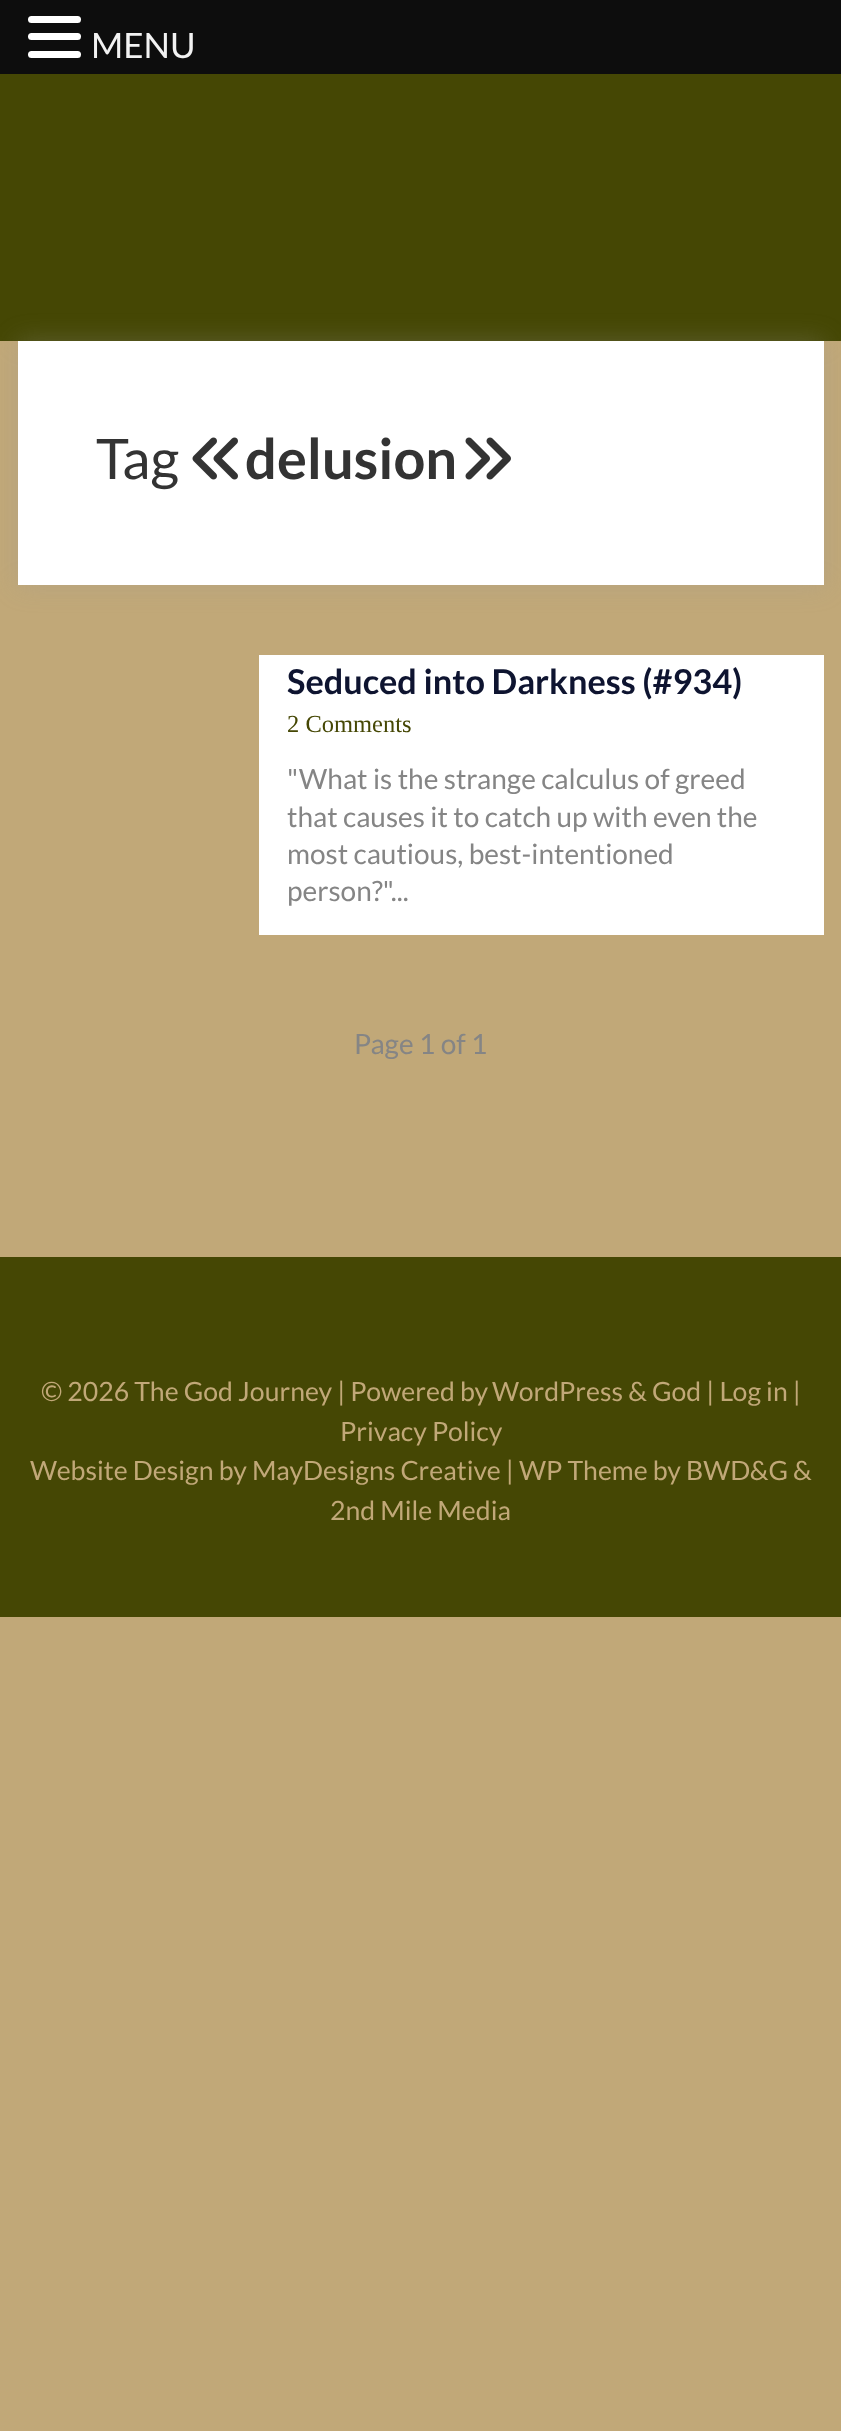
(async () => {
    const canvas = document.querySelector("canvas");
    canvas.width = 841;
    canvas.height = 2431;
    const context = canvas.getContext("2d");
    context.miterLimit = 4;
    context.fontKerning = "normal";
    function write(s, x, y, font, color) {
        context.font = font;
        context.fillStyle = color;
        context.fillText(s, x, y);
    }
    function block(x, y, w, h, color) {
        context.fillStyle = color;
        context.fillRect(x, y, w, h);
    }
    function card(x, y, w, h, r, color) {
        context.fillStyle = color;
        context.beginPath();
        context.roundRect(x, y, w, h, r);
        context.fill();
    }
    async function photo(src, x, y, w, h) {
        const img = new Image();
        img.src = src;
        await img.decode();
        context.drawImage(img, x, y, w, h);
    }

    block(0, 0, 841, 2431, "rgb(193, 168, 120)");
    block(0, 0, 841, 74, "rgb(13, 13, 13)");
    card(28, 16, 53, 7, 3.5, "rgb(255, 255, 255)");
    card(28, 33, 53, 7, 3.5, "rgb(255, 255, 255)");
    card(28, 51, 53, 7, 3.5, "rgb(255, 255, 255)");
    write("MENU", 91, 58, "35px Lato", "rgb(242, 242, 242)");
    block(0, 74, 841, 267, "rgb(69, 71, 4)");
    context.fillStyle = "rgba(153, 153, 153, 0.3)";
    context.filter = "blur(13px)";
    context.beginPath();
    context.rect(18, 341, 806, 244);
    context.fill();
    context.filter = "none";
    block(18, 341, 806, 244, "rgb(255, 255, 255)");
    write("Tag", 96, 479, "56px Lato", "rgb(51, 51, 51)");
    await photo("media/1.png", 192, 437, 46, 43);
    write("delusion", 245, 479, "bold 56px Lato", "rgb(51, 51, 51)");
    await photo("media/2.png", 465, 437, 46, 43);
    block(259, 655, 565, 280, "rgb(255, 255, 255)");
    write("Seduced into Darkness (#934)", 287, 694, "bold 34.25px Lato", "rgb(14, 20, 48)");
    write("2 Comments", 287, 732, "24.5px Liberation Serif", "rgb(69, 71, 4)");
    write("\"What is the strange calculus of greed", 287, 789, "28px Lato", "rgb(133, 133, 133)");
    write("that causes it to catch up with even the", 287, 827, "28px Lato", "rgb(133, 133, 133)");
    write("most cautious, best-intentioned", 287, 864, "28px Lato", "rgb(133, 133, 133)");
    write("person?\"...", 287, 901, "28px Lato", "rgb(133, 133, 133)");
    write("Page 1 of 1", 354, 1054, "28px Lato", "rgb(133, 133, 133)");
    block(0, 1257, 841, 360, "rgb(69, 71, 4)");
    write("© 2026 The God Journey | Powered by", 41, 1401, "26.6px Lato", "rgb(193, 168, 120)");
    write("WordPress & God | Log in |", 492, 1401, "26.6px Lato", "rgb(193, 168, 120)");
    write("Privacy Policy", 340, 1441, "26.6px Lato", "rgb(193, 168, 120)");
    write("Website Design by MayDesigns Creative | WP Theme by BWD&G &", 30, 1480, "26.6px Lato", "rgb(193, 168, 120)");
    write("2nd Mile Media", 330, 1520, "26.6px Lato", "rgb(193, 168, 120)");
})();
